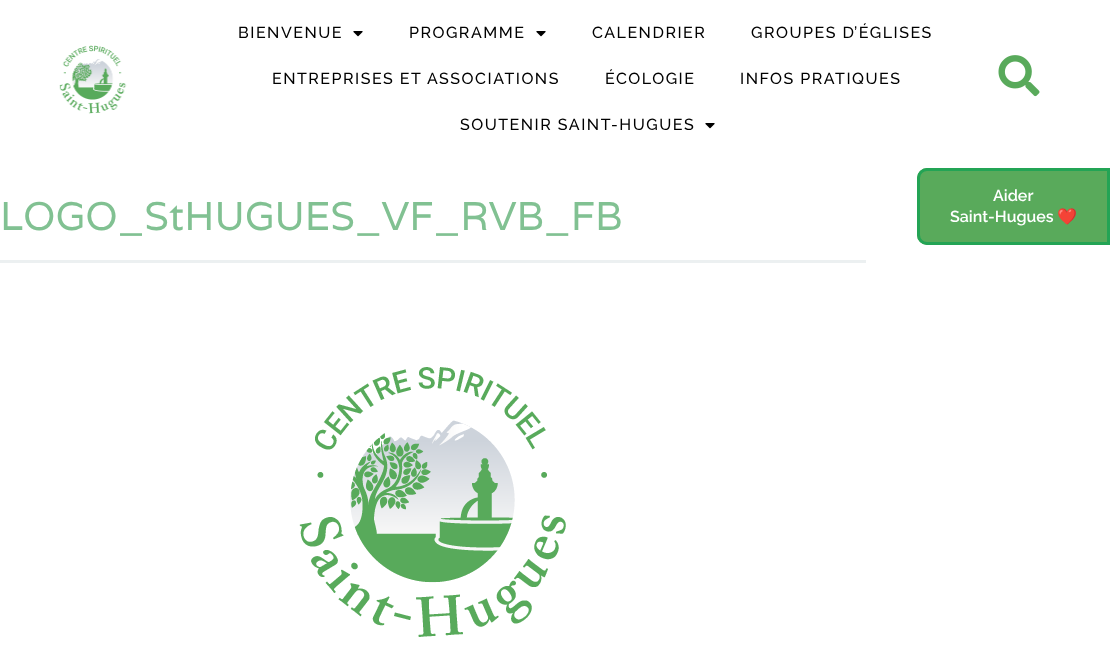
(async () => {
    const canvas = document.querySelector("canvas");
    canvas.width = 1110;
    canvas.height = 671;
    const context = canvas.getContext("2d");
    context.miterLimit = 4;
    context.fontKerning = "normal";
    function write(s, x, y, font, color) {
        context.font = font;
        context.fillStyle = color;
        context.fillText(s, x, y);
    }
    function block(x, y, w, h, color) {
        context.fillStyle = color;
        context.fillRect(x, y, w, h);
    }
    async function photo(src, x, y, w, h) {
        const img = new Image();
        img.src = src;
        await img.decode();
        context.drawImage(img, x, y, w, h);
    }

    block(0, 0, 1110, 671, "rgb(255, 255, 255)");
    await photo("media/1.png", 59, 45, 68, 69);
    context.letterSpacing = "1.5px";
    write("BIENVENUE", 238, 38, "500 16px Raleway", "rgb(0, 0, 0)");
    await photo("media/2.png", 353, 31, 10, 6);
    write("PROGRAMME", 409, 38, "500 16px Raleway", "rgb(0, 0, 0)");
    await photo("media/2.png", 536, 31, 10, 6);
    write("CALENDRIER", 592, 38, "500 16px Raleway", "rgb(0, 0, 0)");
    write("GROUPES D’ÉGLISES", 751, 38, "500 16px Raleway", "rgb(0, 0, 0)");
    write("ENTREPRISES ET ASSOCIATIONS", 272, 84, "500 16px Raleway", "rgb(0, 0, 0)");
    write("ÉCOLOGIE", 605, 84, "500 16px Raleway", "rgb(0, 0, 0)");
    write("INFOS PRATIQUES", 740, 84, "500 16px Raleway", "rgb(0, 0, 0)");
    write("SOUTENIR SAINT-HUGUES", 460, 130, "500 16px Raleway", "rgb(0, 0, 0)");
    await photo("media/2.png", 705, 123, 10, 6);
    await photo("media/3.png", 998, 55, 42, 42);
    context.fillStyle = "rgb(89, 170, 91)";
    context.beginPath();
    context.roundRect(917, 168, 193, 77, [10, 1, 1, 10]);
    context.fill();
    context.beginPath();
    context.moveTo(927, 169.5);
    context.lineTo(1108.5, 169.5);
    context.lineTo(1108.5, 243.5);
    context.lineTo(927, 243.5);
    context.bezierCurveTo(922.5, 243.5, 918.5, 239.5, 918.5, 235);
    context.lineTo(918.5, 178);
    context.bezierCurveTo(918.5, 173.5, 922.5, 169.5, 927, 169.5);
    context.closePath();
    context.strokeStyle = "rgb(35, 164, 85)";
    context.lineWidth = 3;
    context.stroke();
    context.letterSpacing = "0px";
    write("Aider", 993, 201, "600 16px Raleway", "rgb(255, 255, 255)");
    write("Saint-Hugues", 950, 222, "600 16px Raleway", "rgb(255, 255, 255)");
    write("❤️", 1057, 222, "bold 16px Noto Color Emoji", "rgb(255, 255, 255)");
    block(0, 260, 866, 3, "rgb(236, 240, 241)");
    write("LOGO_StHUGUES_VF_RVB_FB", 0, 230, "40px Varela", "rgb(129, 193, 146)");
    await photo("media/4.png", 299, 367, 267, 270);
})();
